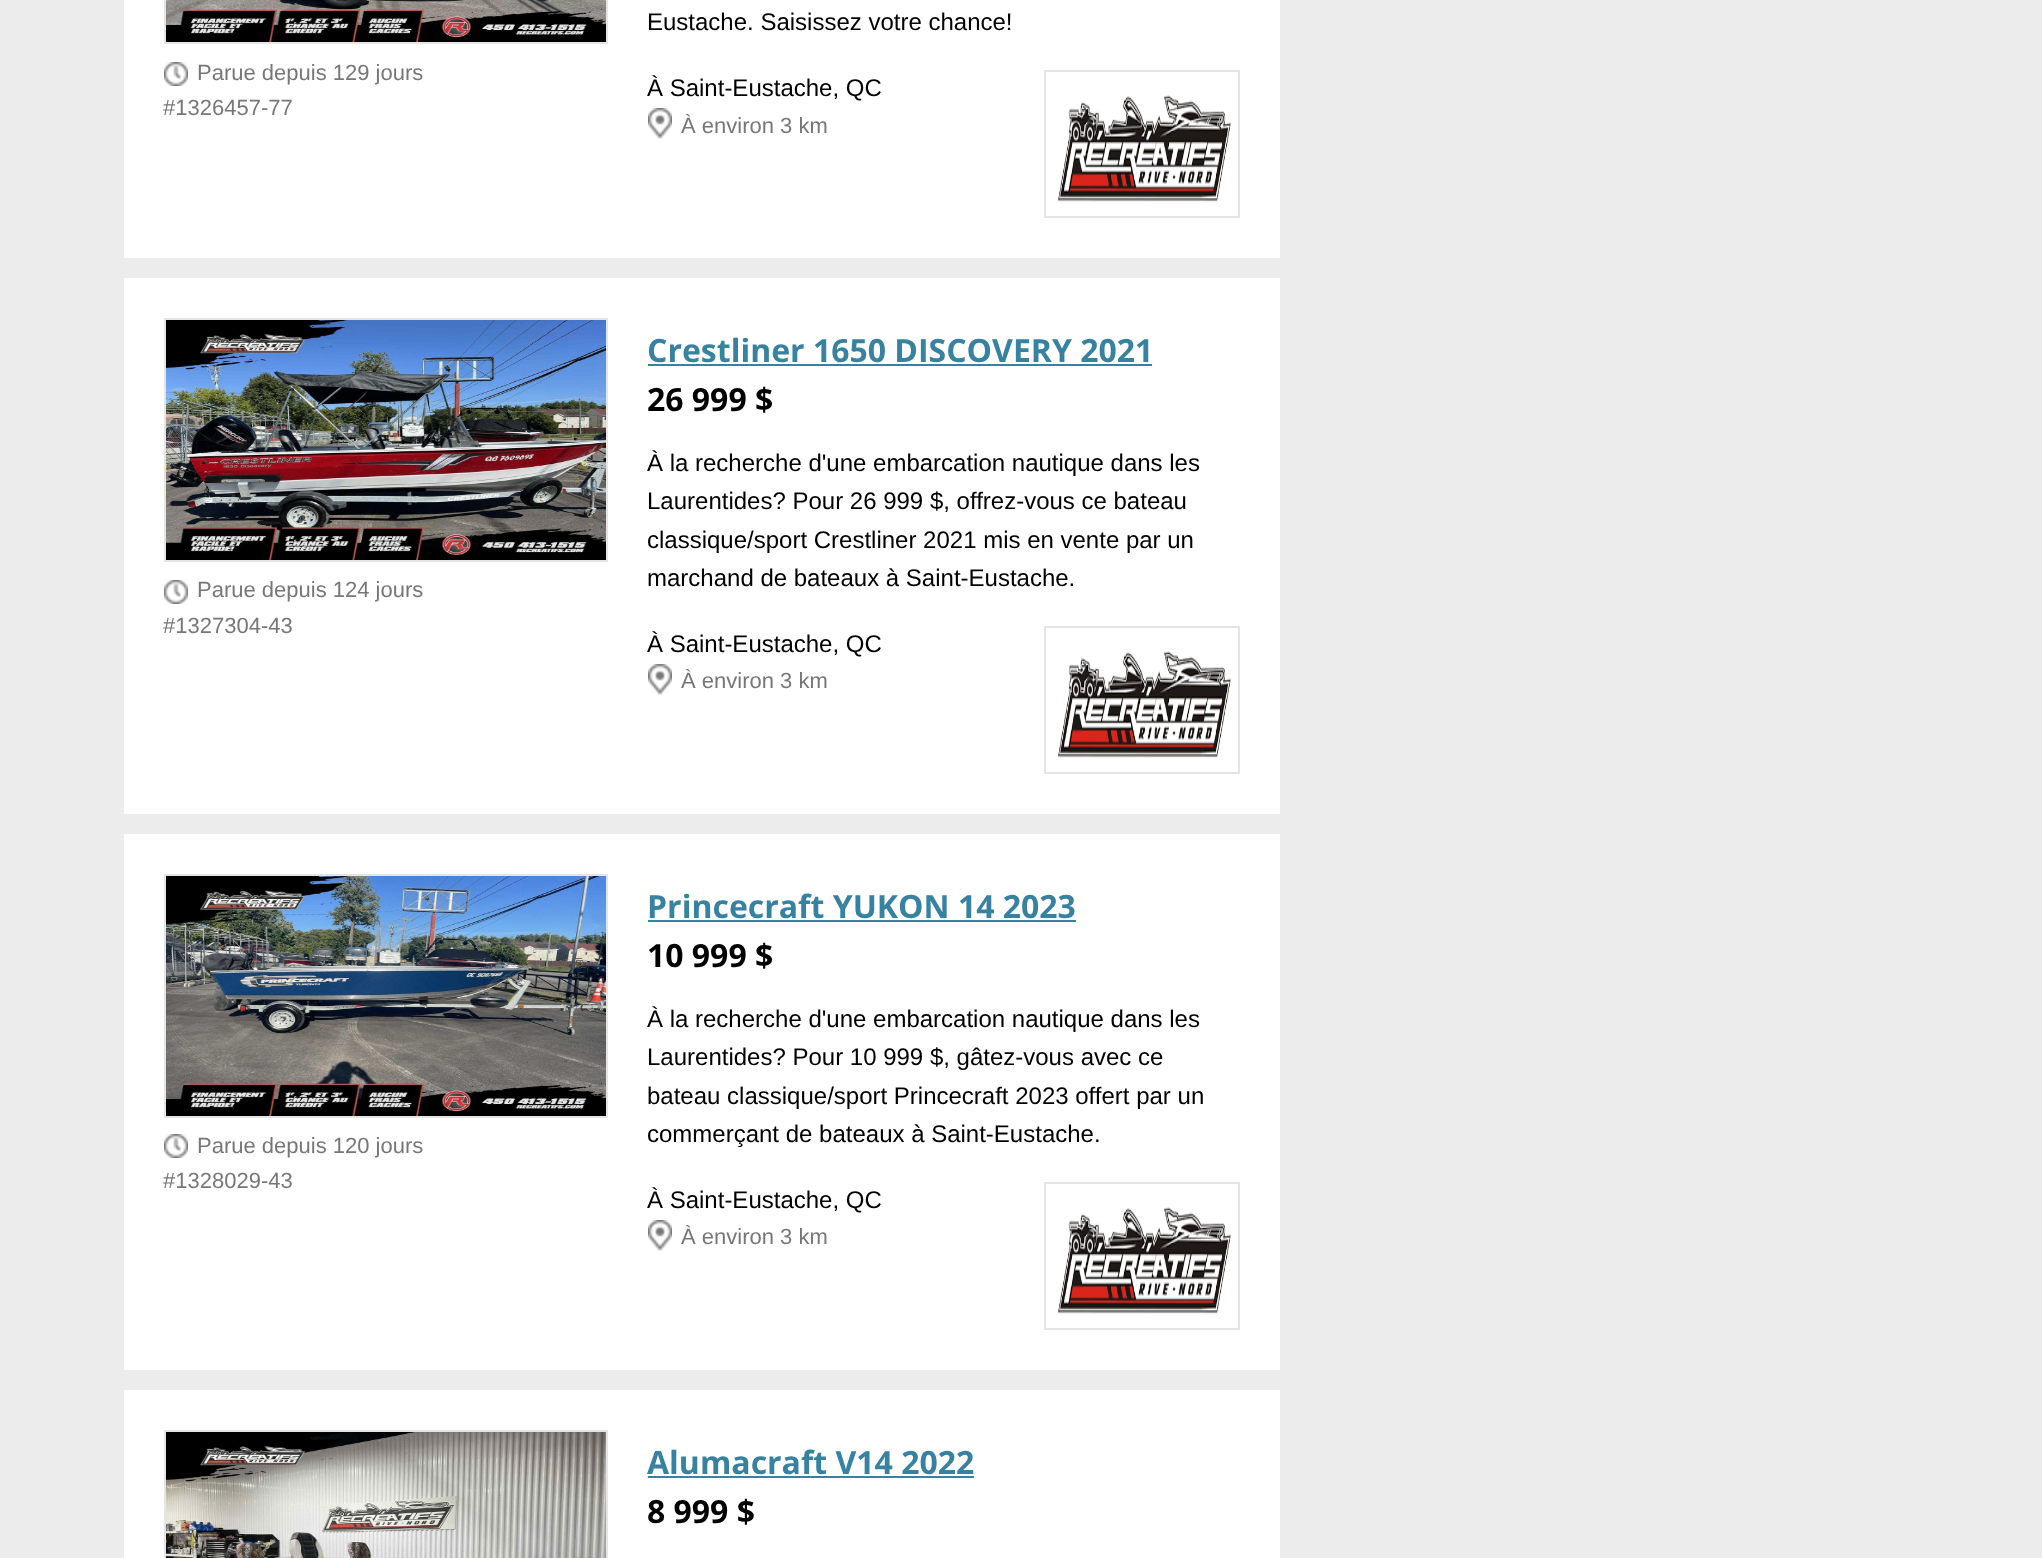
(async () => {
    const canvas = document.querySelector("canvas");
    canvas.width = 2042;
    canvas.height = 1558;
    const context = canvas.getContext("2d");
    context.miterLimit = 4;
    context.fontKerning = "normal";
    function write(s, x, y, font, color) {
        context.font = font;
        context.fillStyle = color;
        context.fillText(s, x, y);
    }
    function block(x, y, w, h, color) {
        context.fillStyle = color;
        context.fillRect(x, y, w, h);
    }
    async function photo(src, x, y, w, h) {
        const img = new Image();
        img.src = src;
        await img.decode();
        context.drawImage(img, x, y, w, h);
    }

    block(0, 0, 2042, 1558, "rgb(236, 236, 236)");
    block(124, 0, 1156, 258, "rgb(255, 255, 255)");
    context.strokeStyle = "rgb(229, 229, 229)";
    context.lineWidth = 2;
    context.strokeRect(165, -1, 442, 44);
    await photo("media/1.png", 166, 0, 440, 42);
    await photo("media/2.png", 164, 62, 24, 24);
    write("Parue depuis 129 jours", 197, 80, "22px Liberation Sans", "rgb(119, 119, 119)");
    write("#1326457-77", 163, 115, "22px Liberation Sans", "rgb(119, 119, 119)");
    write("Eustache. Saisissez votre chance!", 647, 30, "24px Liberation Sans", "rgb(0, 0, 0)");
    write("À Saint-Eustache, QC", 647, 96, "24px Liberation Sans", "rgb(0, 0, 0)");
    await photo("media/3.png", 648, 108, 24, 31);
    write("À environ 3 km", 681, 133, "22px Liberation Sans", "rgb(119, 119, 119)");
    context.strokeRect(1045, 71, 194, 146);
    await photo("media/4.png", 1058, 95, 173, 107);
    block(124, 278, 1156, 536, "rgb(255, 255, 255)");
    context.strokeRect(165, 319, 442, 242);
    await photo("media/5.png", 166, 320, 440, 240);
    await photo("media/2.png", 164, 580, 24, 24);
    write("Parue depuis 124 jours", 197, 597, "22px Liberation Sans", "rgb(119, 119, 119)");
    write("#1327304-43", 163, 633, "22px Liberation Sans", "rgb(119, 119, 119)");
    write("Crestliner 1650 DISCOVERY 2021", 647, 362, "bold 32px Open Sans", "rgb(54, 130, 160)");
    block(648, 364, 504, 2, "rgb(54, 130, 160)");
    write("26 999 $", 647, 411, "bold 32px Open Sans", "rgb(0, 0, 0)");
    write("À la recherche d'une embarcation nautique dans les", 647, 471, "24px Liberation Sans", "rgb(0, 0, 0)");
    write("Laurentides? Pour 26 999 $, offrez-vous ce bateau", 647, 509, "24px Liberation Sans", "rgb(0, 0, 0)");
    write("classique/sport Crestliner 2021 mis en vente par un", 647, 548, "24px Liberation Sans", "rgb(0, 0, 0)");
    write("marchand de bateaux à Saint-Eustache.", 647, 586, "24px Liberation Sans", "rgb(0, 0, 0)");
    write("À Saint-Eustache, QC", 647, 652, "24px Liberation Sans", "rgb(0, 0, 0)");
    await photo("media/3.png", 648, 664, 24, 31);
    write("À environ 3 km", 681, 688, "22px Liberation Sans", "rgb(119, 119, 119)");
    context.strokeRect(1045, 627, 194, 146);
    await photo("media/4.png", 1058, 651, 173, 107);
    block(124, 834, 1156, 536, "rgb(255, 255, 255)");
    context.strokeRect(165, 875, 442, 242);
    await photo("media/6.png", 166, 876, 440, 240);
    await photo("media/2.png", 164, 1134, 24, 24);
    write("Parue depuis 120 jours", 197, 1153, "22px Liberation Sans", "rgb(119, 119, 119)");
    write("#1328029-43", 163, 1188, "22px Liberation Sans", "rgb(119, 119, 119)");
    write("Princecraft YUKON 14 2023", 647, 918, "bold 32px Open Sans", "rgb(54, 130, 160)");
    block(648, 920, 428, 2, "rgb(54, 130, 160)");
    write("10 999 $", 647, 967, "bold 32px Open Sans", "rgb(0, 0, 0)");
    write("À la recherche d'une embarcation nautique dans les", 647, 1027, "24px Liberation Sans", "rgb(0, 0, 0)");
    write("Laurentides? Pour 10 999 $, gâtez-vous avec ce", 647, 1065, "24px Liberation Sans", "rgb(0, 0, 0)");
    write("bateau classique/sport Princecraft 2023 offert par un", 647, 1104, "24px Liberation Sans", "rgb(0, 0, 0)");
    write("commerçant de bateaux à Saint-Eustache.", 647, 1142, "24px Liberation Sans", "rgb(0, 0, 0)");
    write("À Saint-Eustache, QC", 647, 1208, "24px Liberation Sans", "rgb(0, 0, 0)");
    await photo("media/3.png", 648, 1220, 24, 31);
    write("À environ 3 km", 681, 1244, "22px Liberation Sans", "rgb(119, 119, 119)");
    context.strokeRect(1045, 1183, 194, 146);
    await photo("media/4.png", 1058, 1207, 173, 107);
    block(124, 1390, 1156, 168, "rgb(255, 255, 255)");
    context.strokeRect(165, 1431, 442, 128);
    await photo("media/7.png", 166, 1432, 440, 126);
    write("Alumacraft V14 2022", 647, 1474, "bold 32px Open Sans", "rgb(54, 130, 160)");
    block(648, 1476, 326, 2, "rgb(54, 130, 160)");
    write("8 999 $", 647, 1523, "bold 32px Open Sans", "rgb(0, 0, 0)");
})();
